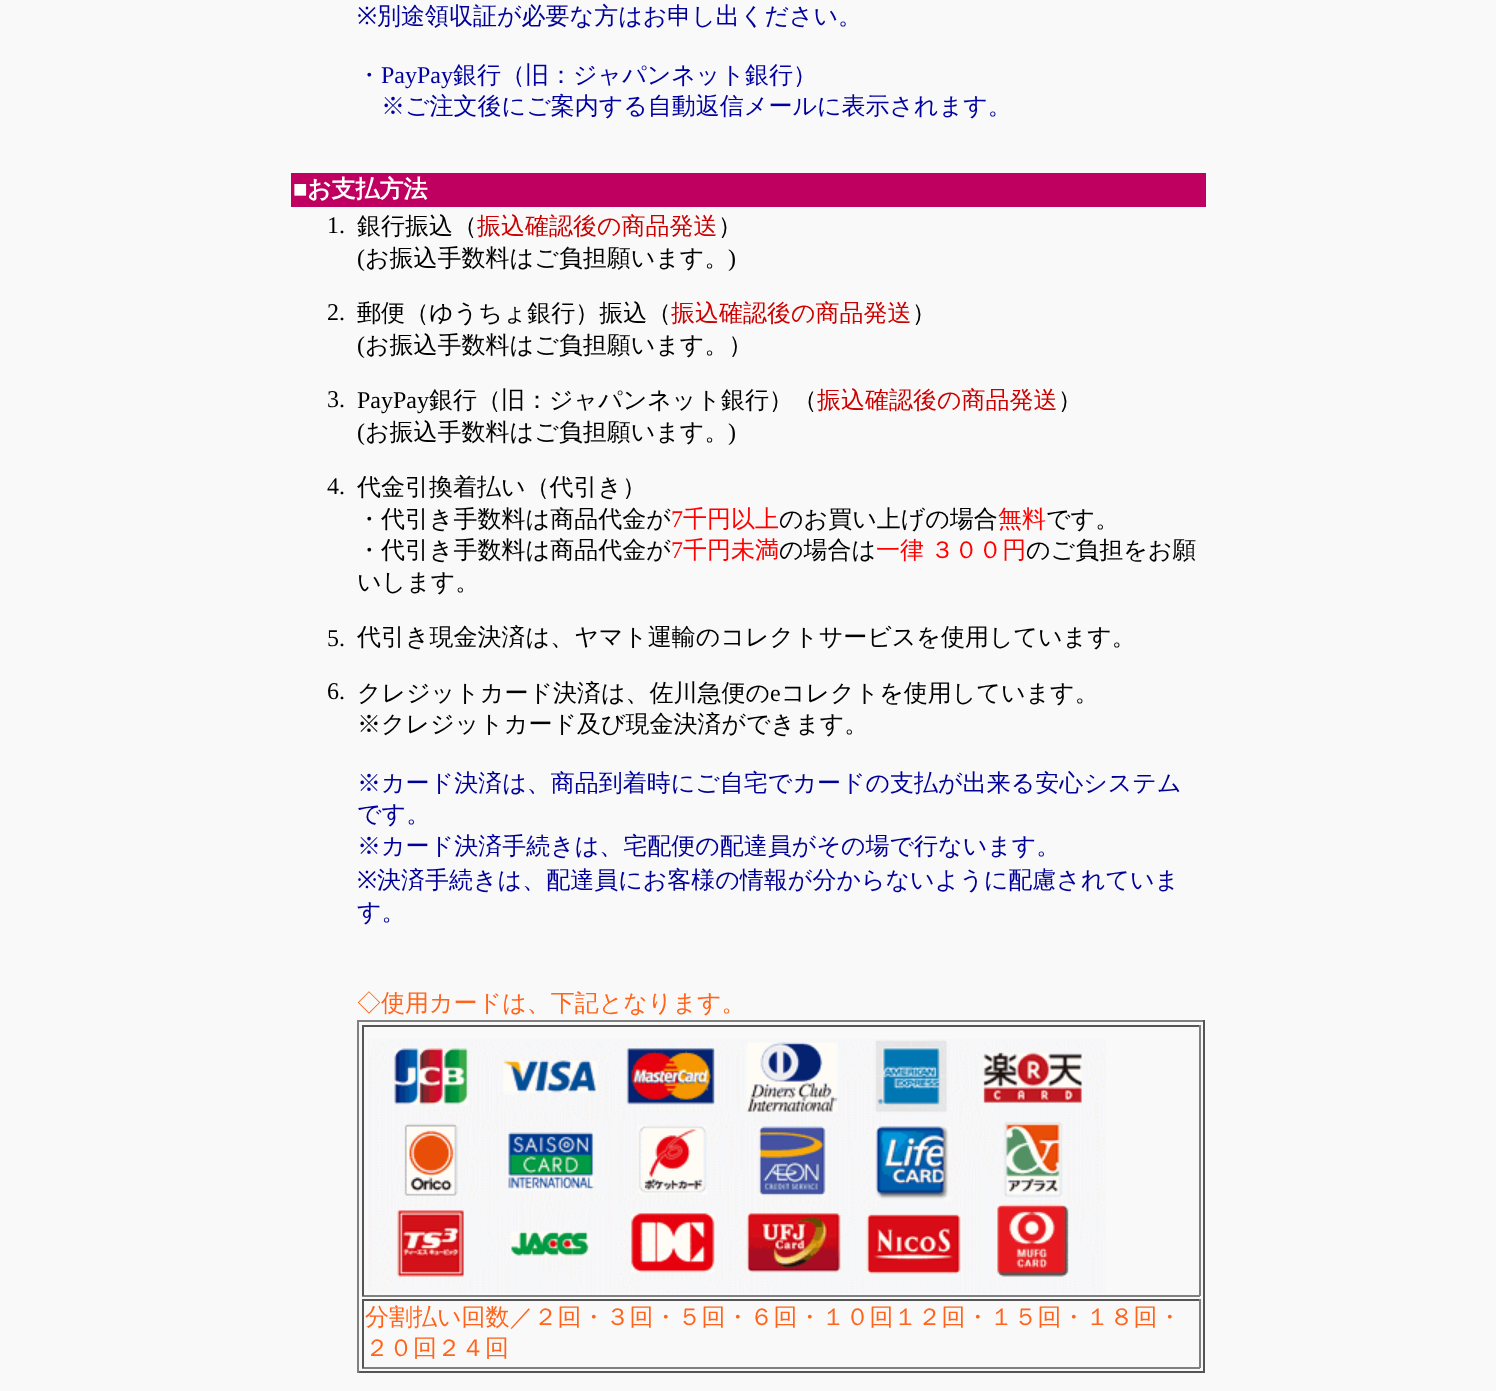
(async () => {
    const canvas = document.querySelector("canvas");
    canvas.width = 1496;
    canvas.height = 1391;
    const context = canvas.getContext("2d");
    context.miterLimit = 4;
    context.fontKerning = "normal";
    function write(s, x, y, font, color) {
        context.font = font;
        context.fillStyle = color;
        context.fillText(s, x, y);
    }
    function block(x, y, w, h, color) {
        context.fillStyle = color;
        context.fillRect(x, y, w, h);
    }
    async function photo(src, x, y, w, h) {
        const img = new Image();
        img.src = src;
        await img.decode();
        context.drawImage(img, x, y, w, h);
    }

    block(0, 0, 1496, 1391, "rgb(249, 249, 249)");
    write("※", 357, 24, "24px Noto Sans", "rgb(0, 0, 153)");
    write("別途領収証が必要な方はお申し出ください。", 377, 24, "500 24px WenQuanYi Zen Hei", "rgb(0, 0, 153)");
    write("・", 357, 83, "500 24px WenQuanYi Zen Hei", "rgb(0, 0, 160)");
    write("PayPay", 381, 83, "24px Liberation Serif", "rgb(0, 0, 160)");
    write("銀行（旧：ジャパンネット銀行）", 453, 83, "500 24px WenQuanYi Zen Hei", "rgb(0, 0, 160)");
    write("※ご注文後にご案内する自動返信メールに表示されます。", 381, 114, "500 24px WenQuanYi Zen Hei", "rgb(0, 0, 160)");
    block(291, 173, 915, 34, "rgb(191, 0, 96)");
    write("■", 293, 197, "24px Liberation Serif", "rgb(255, 255, 255)");
    write("お支払方法", 307, 197, "bold 24px WenQuanYi Zen Hei", "rgb(255, 255, 255)");
    write("1.", 327, 233, "24px Liberation Serif", "rgb(0, 0, 0)");
    write("銀行振込（", 357, 234, "500 24px WenQuanYi Zen Hei", "rgb(0, 0, 0)");
    write("振込確認後の商品発送", 477, 234, "500 24px WenQuanYi Zen Hei", "rgb(204, 0, 0)");
    write("）", 718, 234, "500 24px WenQuanYi Zen Hei", "rgb(0, 0, 0)");
    write("(", 357, 266, "24px Liberation Serif", "rgb(0, 0, 0)");
    write("お振込手数料はご負担願います。", 365, 266, "500 24px WenQuanYi Zen Hei", "rgb(0, 0, 0)");
    write(")", 728, 266, "24px Liberation Serif", "rgb(0, 0, 0)");
    write("2.", 327, 320, "24px Liberation Serif", "rgb(0, 0, 0)");
    write("郵便（ゆうちょ銀行）振込（", 357, 321, "500 24px WenQuanYi Zen Hei", "rgb(0, 0, 0)");
    write("振込確認後の商品発送", 671, 321, "500 24px WenQuanYi Zen Hei", "rgb(204, 0, 0)");
    write("）", 912, 321, "500 24px WenQuanYi Zen Hei", "rgb(0, 0, 0)");
    write("(", 357, 353, "24px Liberation Serif", "rgb(0, 0, 0)");
    write("お振込手数料はご負担願います。）", 365, 353, "500 24px WenQuanYi Zen Hei", "rgb(0, 0, 0)");
    write("3.", 327, 407, "24px Liberation Serif", "rgb(0, 0, 0)");
    write("PayPay", 357, 408, "24px Liberation Serif", "rgb(0, 0, 0)");
    write("銀行（旧：ジャパンネット銀行）（", 429, 408, "500 24px WenQuanYi Zen Hei", "rgb(0, 0, 0)");
    write("振込確認後の商品発送", 817, 408, "500 24px WenQuanYi Zen Hei", "rgb(204, 0, 0)");
    write("）", 1058, 408, "500 24px WenQuanYi Zen Hei", "rgb(0, 0, 0)");
    write("(", 357, 440, "24px Liberation Serif", "rgb(0, 0, 0)");
    write("お振込手数料はご負担願います。", 365, 440, "500 24px WenQuanYi Zen Hei", "rgb(0, 0, 0)");
    write(")", 728, 440, "24px Liberation Serif", "rgb(0, 0, 0)");
    write("4.", 327, 494, "24px Liberation Serif", "rgb(0, 0, 0)");
    write("代金引換着払い（代引き）", 357, 495, "500 24px WenQuanYi Zen Hei", "rgb(0, 0, 0)");
    write("・代引き手数料は商品代金が", 357, 527, "500 24px WenQuanYi Zen Hei", "rgb(0, 0, 0)");
    write("7", 671, 527, "24px Liberation Serif", "rgb(255, 0, 0)");
    write("千円以上", 683, 527, "500 24px WenQuanYi Zen Hei", "rgb(255, 0, 0)");
    write("のお買い上げの場合", 779, 527, "500 24px WenQuanYi Zen Hei", "rgb(0, 0, 0)");
    write("無料", 998, 527, "500 24px WenQuanYi Zen Hei", "rgb(255, 0, 0)");
    write("です。", 1046, 527, "500 24px WenQuanYi Zen Hei", "rgb(0, 0, 0)");
    write("・代引き手数料は商品代金が", 357, 558, "500 24px WenQuanYi Zen Hei", "rgb(0, 0, 0)");
    write("7", 671, 558, "24px Liberation Serif", "rgb(255, 0, 0)");
    write("千円未満", 683, 558, "500 24px WenQuanYi Zen Hei", "rgb(255, 0, 0)");
    write("の場合は", 779, 558, "500 24px WenQuanYi Zen Hei", "rgb(0, 0, 0)");
    context.wordSpacing = "-1px";
    write("一律 ３００円", 876, 558, "500 24px WenQuanYi Zen Hei", "rgb(255, 0, 0)");
    context.wordSpacing = "0px";
    write("のご負担をお願", 1026, 558, "500 24px WenQuanYi Zen Hei", "rgb(0, 0, 0)");
    write("いします。", 357, 590, "500 24px WenQuanYi Zen Hei", "rgb(0, 0, 0)");
    write("5.", 327, 646, "24px Liberation Serif", "rgb(0, 0, 0)");
    write("代引き現金決済は、ヤマト運輸のコレクトサービスを使用しています。", 357, 645, "500 24px WenQuanYi Zen Hei", "rgb(0, 0, 0)");
    write("6.", 327, 699, "24px Liberation Serif", "rgb(0, 0, 0)");
    write("クレジットカード決済は、佐川急便の", 357, 701, "500 24px WenQuanYi Zen Hei", "rgb(0, 0, 0)");
    write("e", 770, 701, "24px Liberation Serif", "rgb(0, 0, 0)");
    write("コレクトを使用しています。", 781, 701, "500 24px WenQuanYi Zen Hei", "rgb(0, 0, 0)");
    write("※クレジットカード及び現金決済ができます。", 357, 732, "500 24px WenQuanYi Zen Hei", "rgb(0, 0, 0)");
    write("※カード決済は、商品到着時にご自宅でカードの支払が出来る安心システム", 357, 791, "500 24px WenQuanYi Zen Hei", "rgb(0, 0, 153)");
    write("です。", 357, 822, "500 24px WenQuanYi Zen Hei", "rgb(0, 0, 153)");
    write("※カード決済手続きは、宅配便の配達員がその場で行ないます。", 357, 854, "500 24px WenQuanYi Zen Hei", "rgb(0, 0, 153)");
    write("※", 357, 888, "24px Noto Sans", "rgb(0, 0, 153)");
    write("決済手続きは、配達員にお客様の情報が分からないように配慮されていま", 377, 888, "500 24px WenQuanYi Zen Hei", "rgb(0, 0, 153)");
    write("す。", 357, 920, "500 24px WenQuanYi Zen Hei", "rgb(0, 0, 153)");
    write("◇使用カードは、下記となります。", 357, 1011, "500 24px WenQuanYi Zen Hei", "rgb(255, 100, 26)");
    block(357, 1020, 848, 2, "rgb(128, 128, 128)");
    block(1203, 1020, 2, 353, "rgb(85, 85, 85)");
    block(357, 1371, 848, 2, "rgb(85, 85, 85)");
    block(357, 1020, 2, 353, "rgb(128, 128, 128)");
    block(362, 1025, 838, 2, "rgb(85, 85, 85)");
    block(1199, 1025, 2, 271, "rgb(128, 128, 128)");
    block(362, 1295, 838, 2, "rgb(128, 128, 128)");
    block(362, 1025, 2, 271, "rgb(85, 85, 85)");
    await photo("media/1.png", 368, 1039, 738, 254);
    block(362, 1299, 838, 2, "rgb(85, 85, 85)");
    block(1199, 1299, 2, 69, "rgb(128, 128, 128)");
    block(362, 1367, 838, 2, "rgb(128, 128, 128)");
    block(362, 1299, 2, 69, "rgb(85, 85, 85)");
    write("分割払い回数／２回・３回・５回・６回・１０回１２回・１５回・１８回・", 365, 1325, "500 24px WenQuanYi Zen Hei", "rgb(255, 100, 26)");
    write("２０回２４回", 365, 1356, "500 24px WenQuanYi Zen Hei", "rgb(255, 100, 26)");
})();
